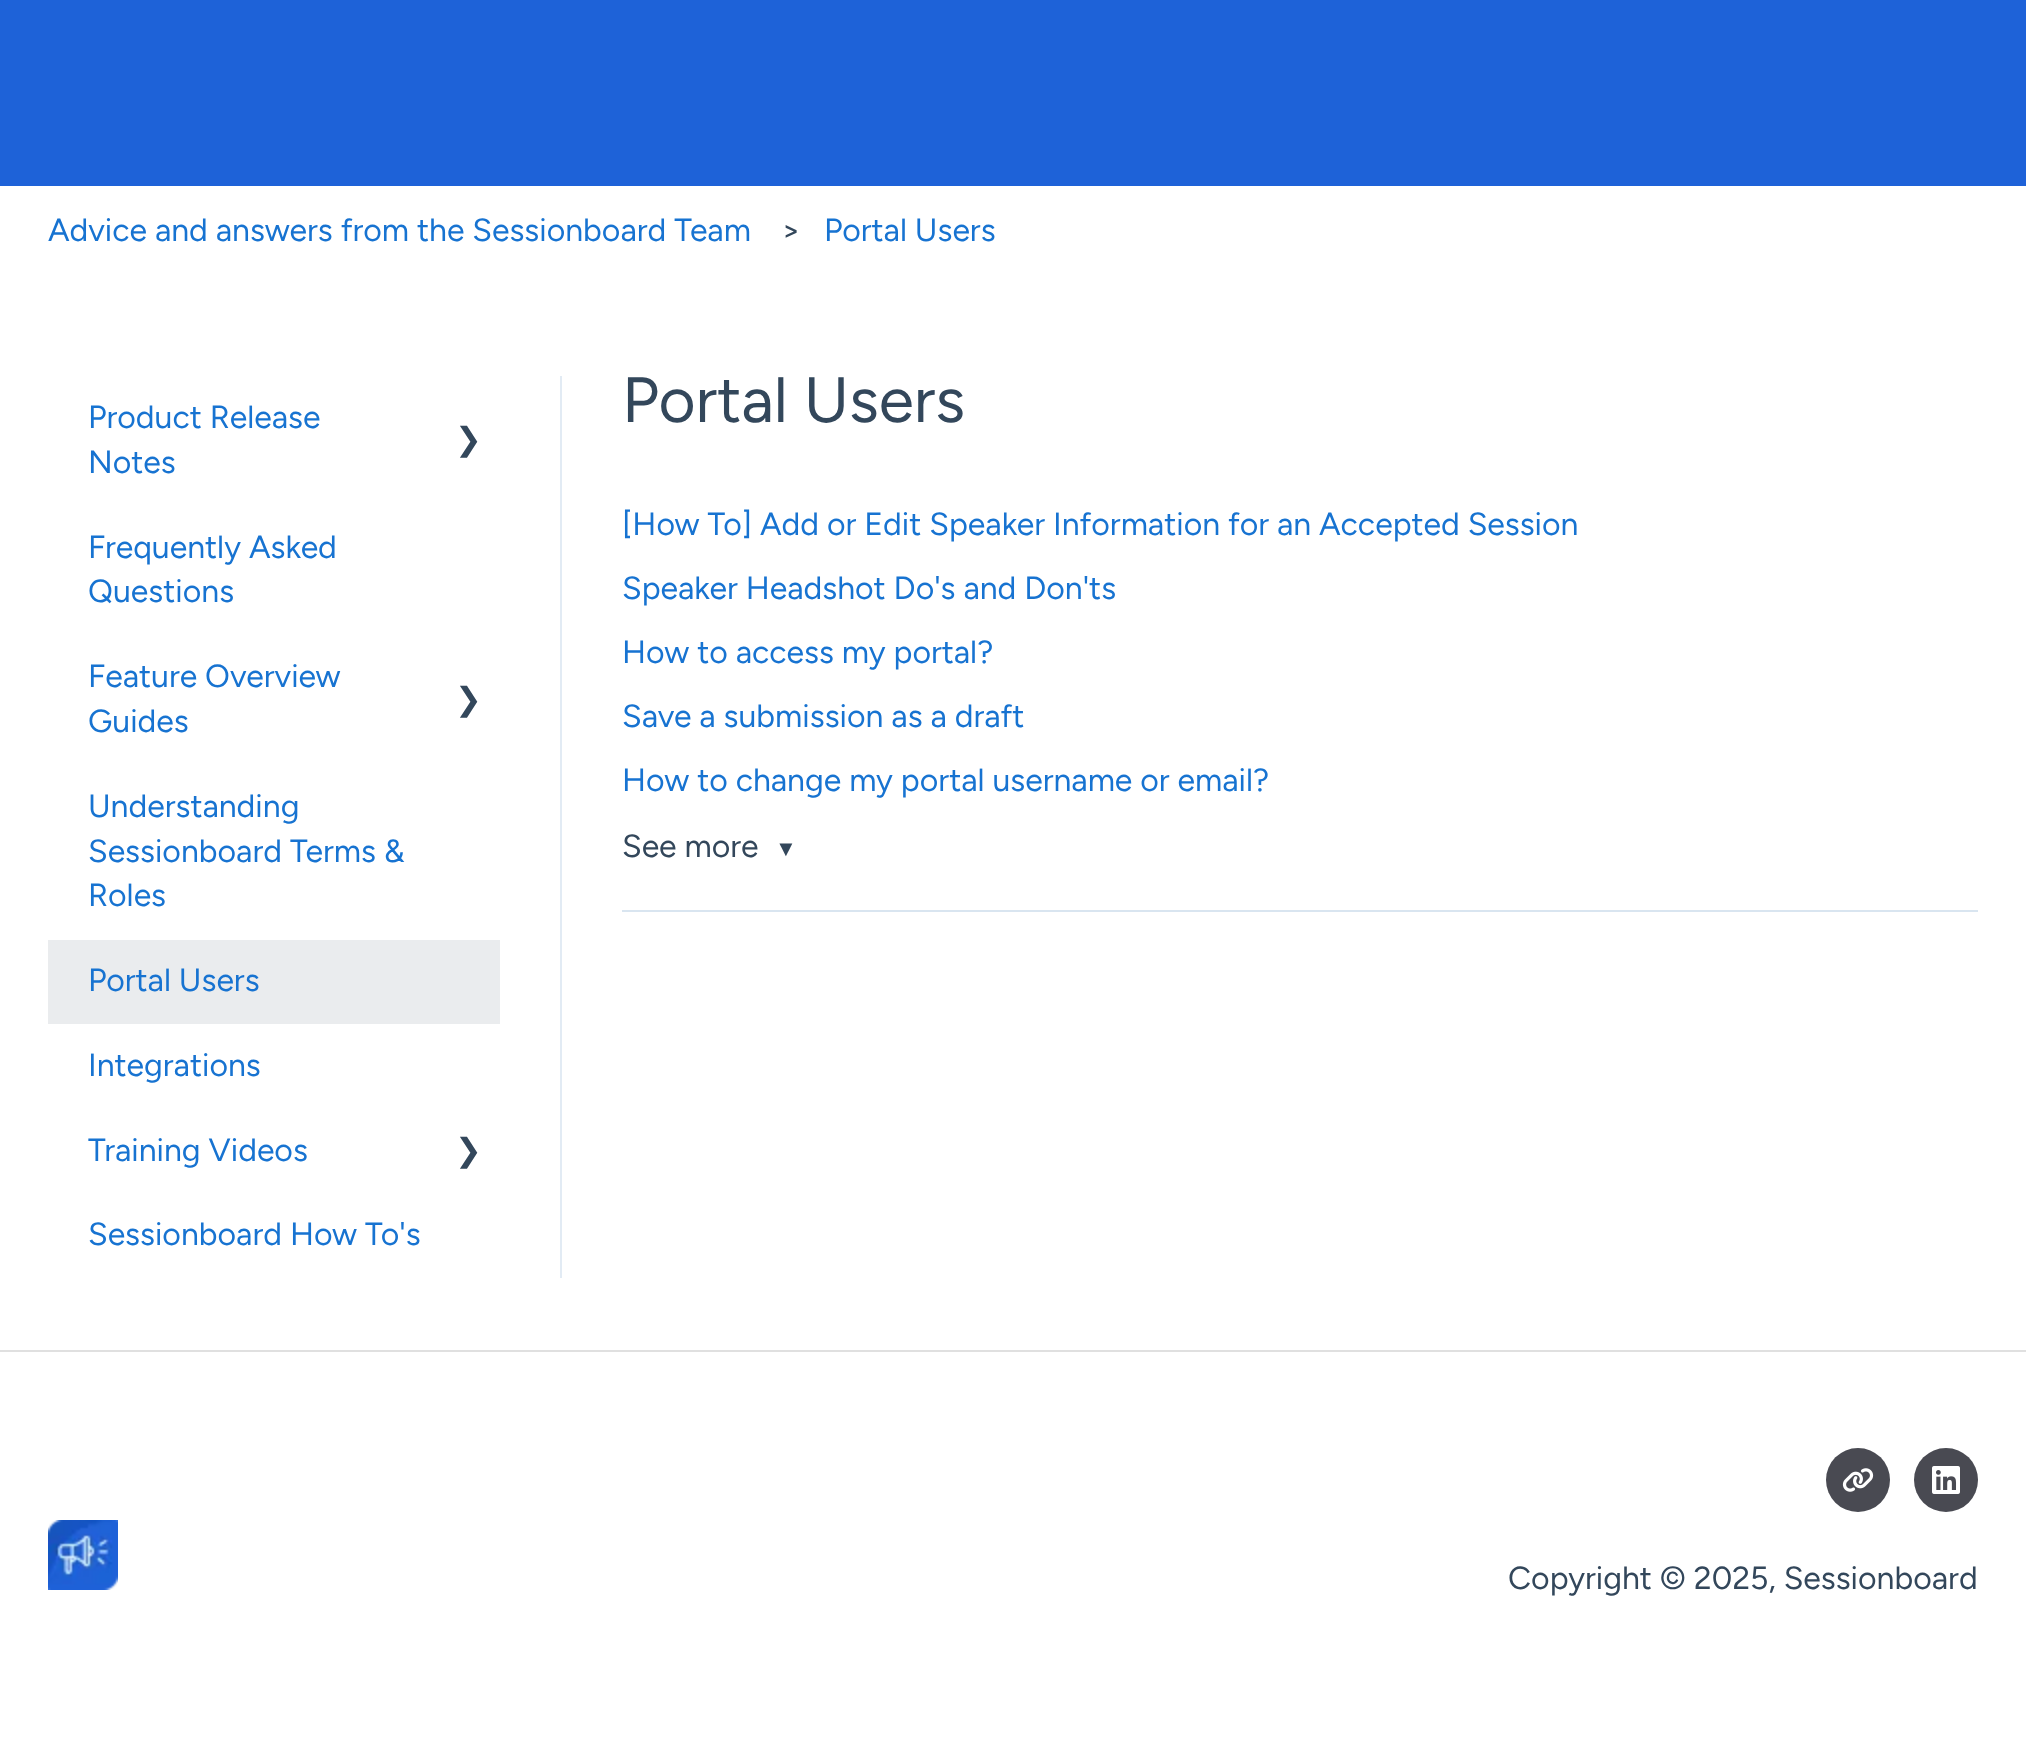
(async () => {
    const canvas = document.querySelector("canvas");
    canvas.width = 2026;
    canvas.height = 1742;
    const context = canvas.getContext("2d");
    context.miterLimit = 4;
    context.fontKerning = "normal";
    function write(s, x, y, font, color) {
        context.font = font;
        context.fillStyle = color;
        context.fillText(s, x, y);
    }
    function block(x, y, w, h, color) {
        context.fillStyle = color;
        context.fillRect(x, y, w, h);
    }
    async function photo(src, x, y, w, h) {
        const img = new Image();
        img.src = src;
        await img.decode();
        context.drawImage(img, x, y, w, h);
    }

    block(0, 0, 2026, 1742, "rgb(255, 255, 255)");
    block(0, 0, 2026, 186, "rgb(30, 98, 216)");
    write("Advice and answers from the Sessionboard Team", 48, 241, "300 32px Figtree", "rgb(23, 115, 209)");
    write(">", 781, 241, "300 32px Figtree", "rgb(51, 71, 91)");
    write("Portal Users", 824, 241, "300 32px Figtree", "rgb(23, 115, 209)");
    block(560, 376, 2, 902, "rgb(226, 235, 244)");
    write("Product Release", 88, 428, "300 32px Figtree", "rgb(23, 115, 209)");
    write("Notes", 88, 473, "300 32px Figtree", "rgb(23, 115, 209)");
    write("❯", 455, 450, "32px DejaVu Sans", "rgb(51, 71, 91)");
    write("Frequently Asked", 88, 558, "300 32px Figtree", "rgb(23, 115, 209)");
    write("Questions", 88, 602, "300 32px Figtree", "rgb(23, 115, 209)");
    write("Feature Overview", 88, 687, "300 32px Figtree", "rgb(23, 115, 209)");
    write("Guides", 88, 732, "300 32px Figtree", "rgb(23, 115, 209)");
    write("❯", 455, 710, "32px DejaVu Sans", "rgb(51, 71, 91)");
    write("Understanding", 88, 817, "300 32px Figtree", "rgb(23, 115, 209)");
    write("Sessionboard Terms &", 88, 862, "300 32px Figtree", "rgb(23, 115, 209)");
    write("Roles", 88, 906, "300 32px Figtree", "rgb(23, 115, 209)");
    block(48, 940, 452, 84, "rgb(234, 236, 238)");
    write("Portal Users", 88, 991, "300 32px Figtree", "rgb(23, 115, 209)");
    write("Integrations", 88, 1076, "300 32px Figtree", "rgb(23, 115, 209)");
    write("Training Videos", 88, 1161, "300 32px Figtree", "rgb(23, 115, 209)");
    write("❯", 455, 1161, "32px DejaVu Sans", "rgb(51, 71, 91)");
    write("Sessionboard How To's", 88, 1245, "300 32px Figtree", "rgb(23, 115, 209)");
    block(622, 910, 1356, 2, "rgb(217, 229, 240)");
    write("Portal Users", 622, 422, "300 64px Figtree", "rgb(51, 71, 91)");
    write("[How To] Add or Edit Speaker Information for an Accepted Session", 622, 535, "300 32px Figtree", "rgb(23, 115, 209)");
    write("Speaker Headshot Do's and Don'ts", 622, 599, "300 32px Figtree", "rgb(23, 115, 209)");
    write("How to access my portal?", 622, 663, "300 32px Figtree", "rgb(23, 115, 209)");
    write("Save a submission as a draft", 622, 727, "300 32px Figtree", "rgb(23, 115, 209)");
    write("How to change my portal username or email?", 622, 791, "300 32px Figtree", "rgb(23, 115, 209)");
    write("See more", 622, 857, "300 32px Figtree", "rgb(51, 71, 91)");
    write("▼", 775, 856, "22px Liberation Sans", "rgb(51, 71, 91)");
    block(0, 1350, 2026, 2, "rgb(224, 224, 224)");
    await photo("media/1.png", 48, 1520, 70, 70);
    context.fillStyle = "rgb(73, 74, 82)";
    context.beginPath();
    context.arc(1858, 1480, 32, 0, Math.PI * 2);
    context.fill();
    await photo("media/2.png", 1842, 1468, 32, 24);
    context.beginPath();
    context.arc(1946, 1480, 32, 0, Math.PI * 2);
    context.fill();
    await photo("media/3.png", 1932, 1466, 28, 28);
    write("Copyright © 2025, Sessionboard", 1508, 1589, "300 32px Figtree", "rgb(51, 71, 91)");
})();
